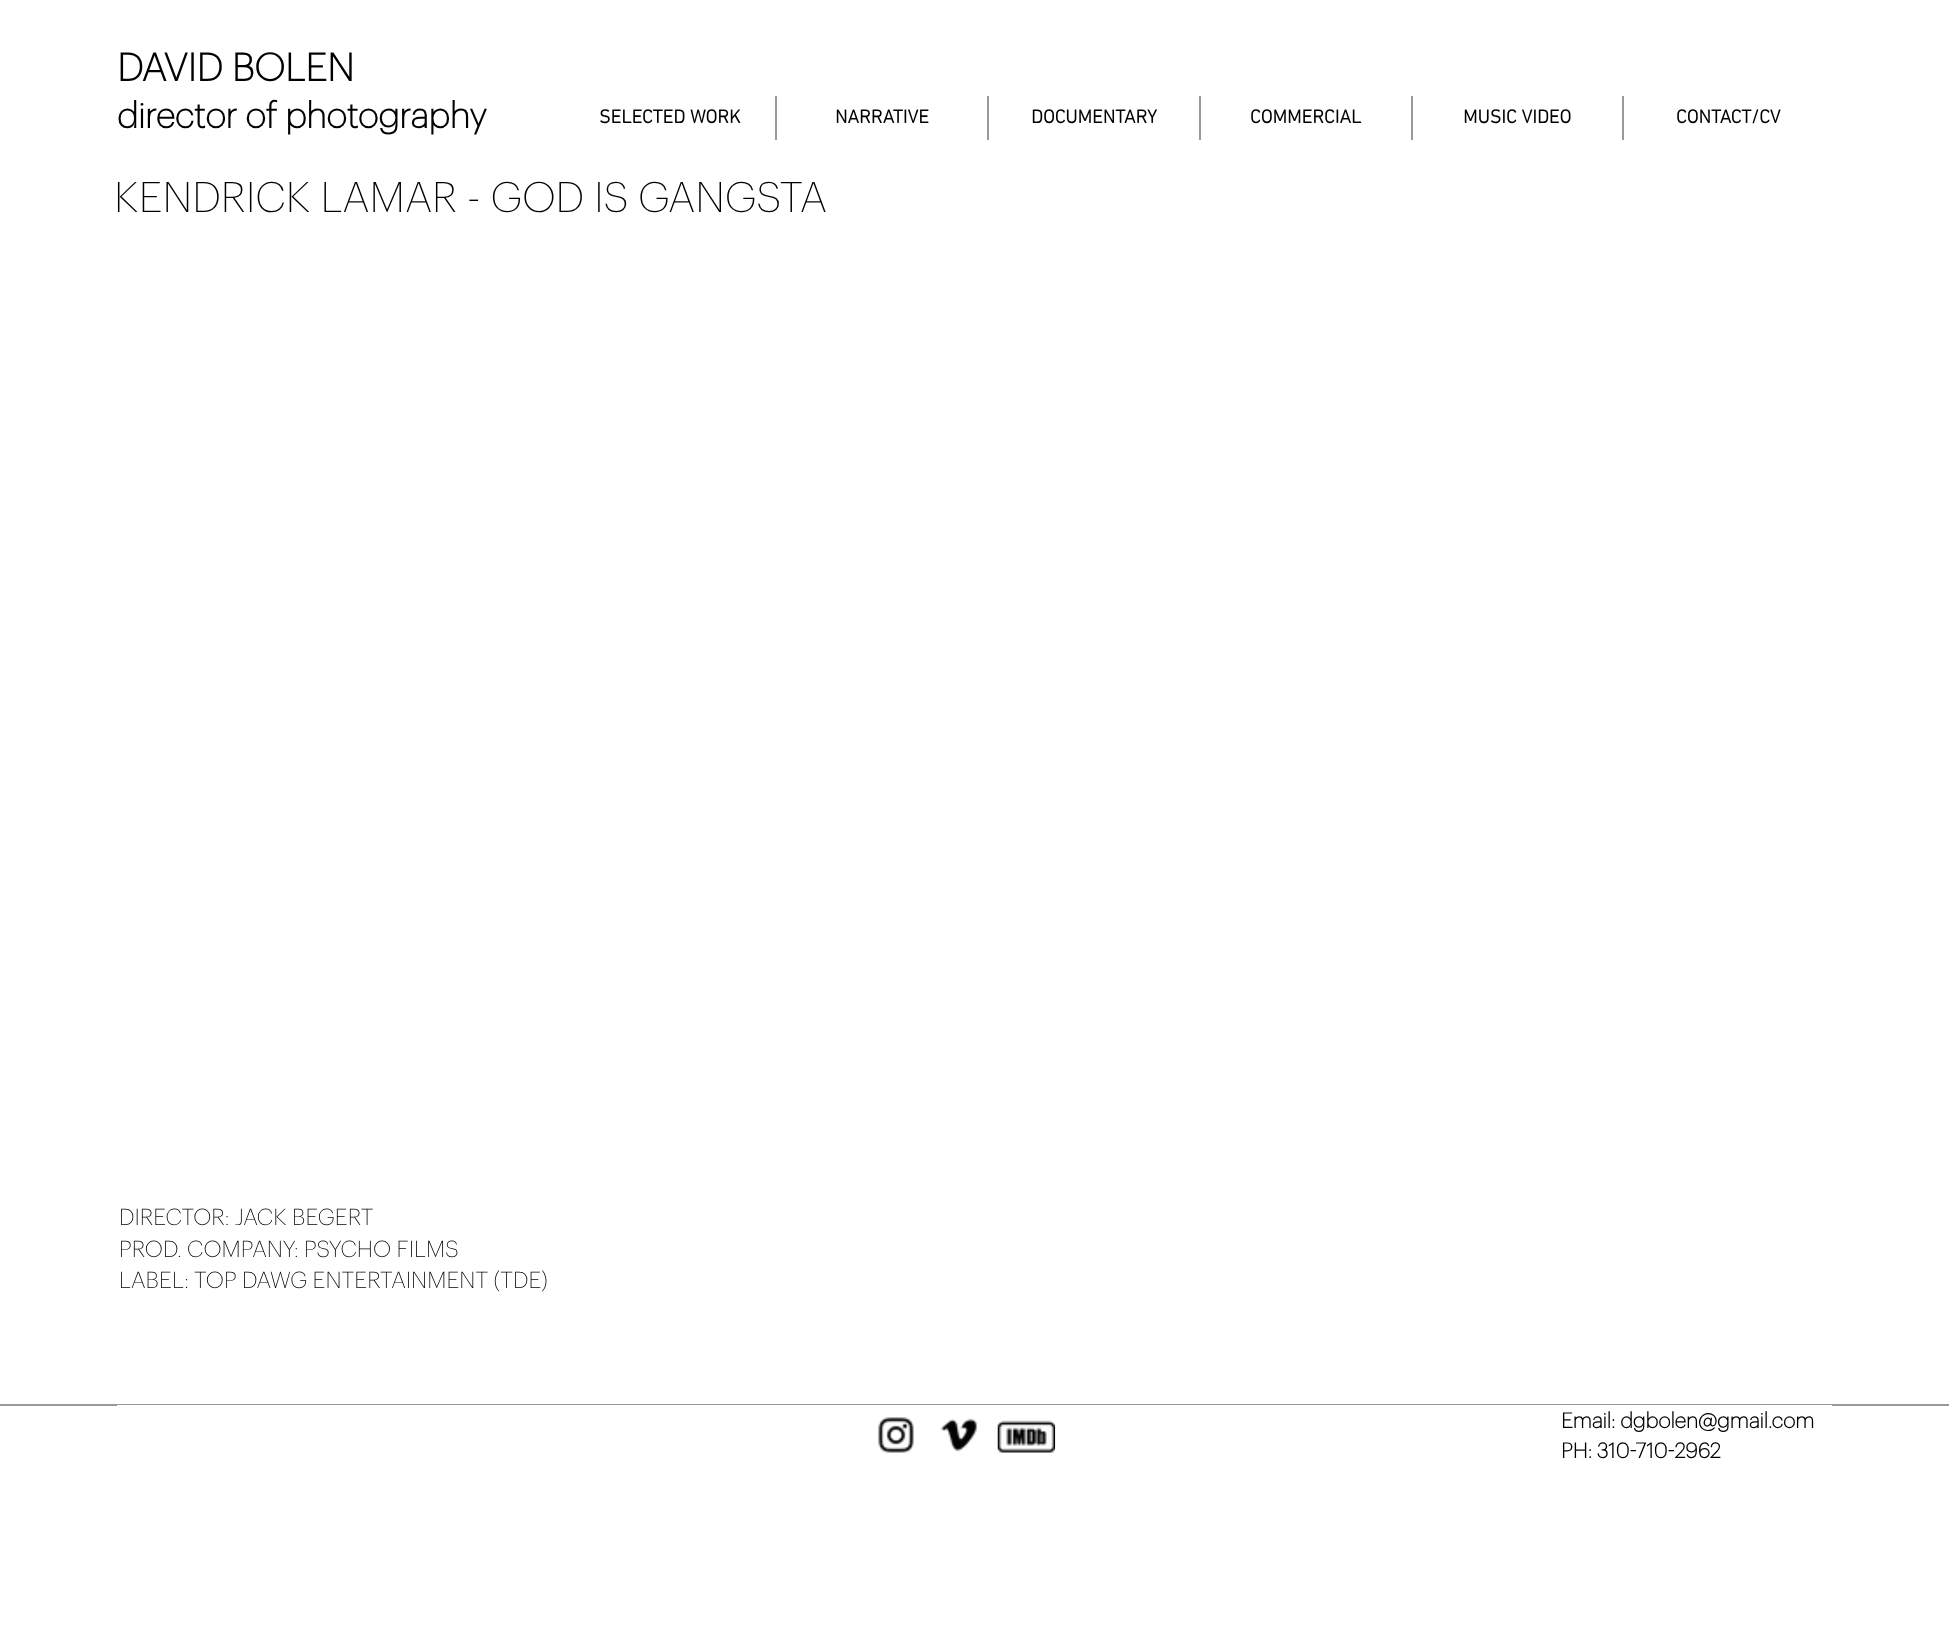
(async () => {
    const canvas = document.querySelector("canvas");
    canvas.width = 1949;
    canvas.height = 1652;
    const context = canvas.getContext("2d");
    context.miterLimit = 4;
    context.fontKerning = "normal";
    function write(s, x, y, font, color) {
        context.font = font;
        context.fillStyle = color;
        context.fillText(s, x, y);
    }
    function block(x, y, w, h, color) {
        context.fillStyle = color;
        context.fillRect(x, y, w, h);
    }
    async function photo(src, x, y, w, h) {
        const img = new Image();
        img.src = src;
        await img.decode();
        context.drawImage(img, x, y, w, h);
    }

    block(0, 0, 1949, 1652, "rgb(255, 255, 255)");
    write("DAVID BOLEN", 117, 81, "bold 38.5px Graphik", "rgb(0, 0, 0)");
    write("director of photography", 117, 128, "bold 35px Graphik", "rgb(0, 0, 0)");
    write("SELECTED WORK", 599, 123, "bold 19.25px 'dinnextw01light'", "rgb(0, 0, 0)");
    block(775, 96, 2, 44, "rgb(153, 153, 153)");
    write("NARRATIVE", 835, 123, "bold 19.25px 'dinnextw01light'", "rgb(0, 0, 0)");
    block(987, 96, 2, 44, "rgb(153, 153, 153)");
    write("DOCUMENTARY", 1031, 123, "bold 19.25px 'dinnextw01light'", "rgb(0, 0, 0)");
    block(1199, 96, 2, 44, "rgb(153, 153, 153)");
    write("COMMERCIAL", 1250, 123, "bold 19.25px 'dinnextw01light'", "rgb(0, 0, 0)");
    block(1411, 96, 2, 44, "rgb(153, 153, 153)");
    write("MUSIC VIDEO", 1463, 123, "bold 19.25px 'dinnextw01light'", "rgb(0, 0, 0)");
    block(1622, 96, 2, 44, "rgb(153, 153, 153)");
    write("CONTACT/CV", 1676, 123, "bold 19.25px 'dinnextw01light'", "rgb(0, 0, 0)");
    write("KENDRICK LAMAR - GOD IS GANGSTA", 114, 212, "200 42px Graphik", "rgb(0, 0, 0)");
    write("DIRECTOR: JACK BEGERT", 119, 1225, "200 22.75px Graphik", "rgb(0, 0, 0)");
    write("PROD. COMPANY: PSYCHO FILMS", 119, 1257, "200 22.75px Graphik", "rgb(0, 0, 0)");
    write("LABEL: TOP DAWG ENTERTAINMENT (TDE)", 119, 1288, "200 22.75px Graphik", "rgb(0, 0, 0)");
    block(0, 1404, 1949, 2, "rgb(153, 153, 153)");
    block(117, 1405, 1715, 1, "rgb(255, 255, 255)");
    await photo("media/1.png", 878, 1417, 36, 36);
    await photo("media/2.png", 941, 1418, 36, 34);
    await photo("media/3.png", 997, 1420, 59, 33);
    write("Email: dgbolen@gmail.com", 1561, 1428, "bold 21px Graphik", "rgb(0, 0, 0)");
    write("PH: 310-710-2962", 1561, 1458, "bold 21px Graphik", "rgb(0, 0, 0)");
})();
